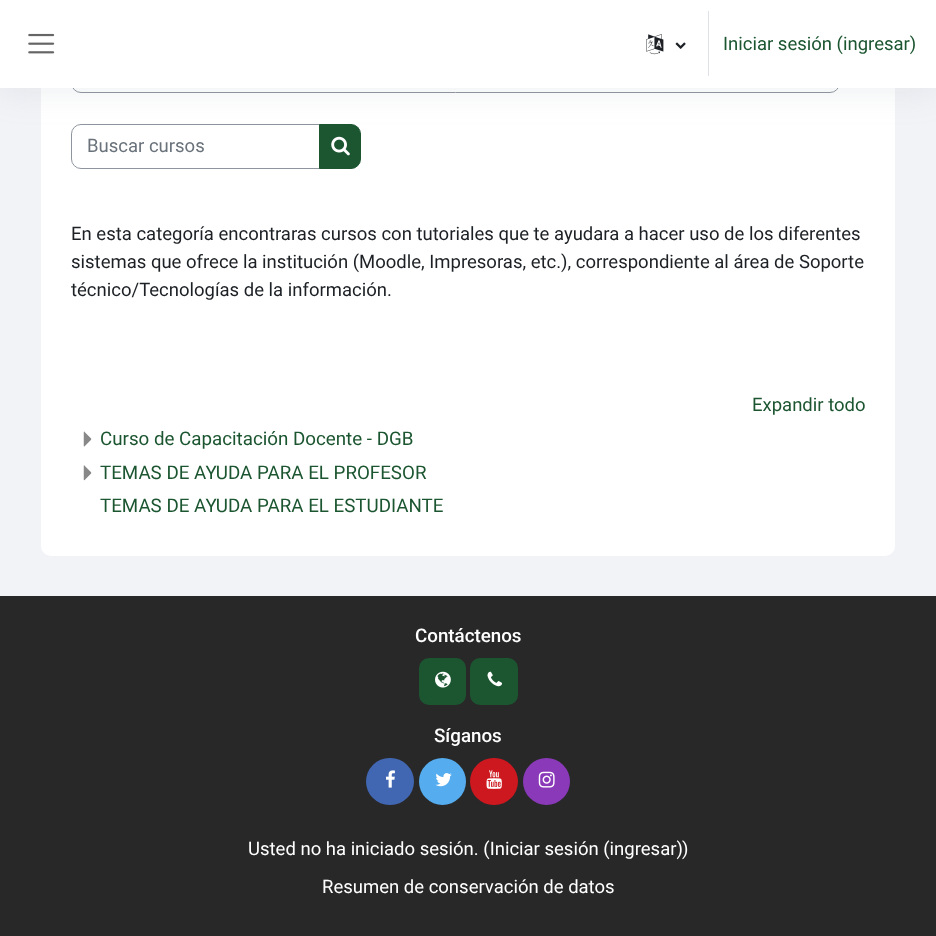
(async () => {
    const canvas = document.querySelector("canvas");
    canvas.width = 936;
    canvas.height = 936;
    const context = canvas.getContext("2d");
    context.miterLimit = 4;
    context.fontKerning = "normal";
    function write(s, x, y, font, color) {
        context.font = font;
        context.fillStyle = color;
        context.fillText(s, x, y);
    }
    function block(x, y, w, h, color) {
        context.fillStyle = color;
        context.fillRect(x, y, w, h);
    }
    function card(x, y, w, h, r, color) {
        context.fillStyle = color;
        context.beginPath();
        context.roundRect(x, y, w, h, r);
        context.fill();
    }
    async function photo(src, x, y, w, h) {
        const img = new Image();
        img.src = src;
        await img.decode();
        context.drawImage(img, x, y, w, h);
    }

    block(0, 0, 936, 936, "rgb(242, 243, 247)");
    card(41, 4, 854, 552, 10, "rgb(255, 255, 255)");
    context.beginPath();
    context.roundRect(71.5, 48.5, 768, 44, 9.5);
    context.strokeStyle = "rgb(143, 149, 158)";
    context.stroke();
    context.beginPath();
    context.roundRect(71.5, 124.5, 248, 44, [9.5, 0, 0, 9.5]);
    context.stroke();
    context.fillStyle = "rgb(28, 86, 49)";
    context.beginPath();
    context.roundRect(319.5, 124.5, 41, 44, [0, 9.5, 9.5, 0]);
    context.fill();
    context.strokeStyle = "rgb(28, 86, 49)";
    context.stroke();
    await photo("media/4.png", 331, 136, 19, 20);
    context.fillStyle = "rgba(140, 152, 164, 0.13)";
    context.filter = "blur(15px)";
    context.beginPath();
    context.rect(0, 8, 936, 87);
    context.fill();
    context.filter = "none";
    block(0, 0, 936, 88, "rgb(255, 255, 255)");
    await photo("media/1.png", 28, 33, 27, 21);
    await photo("media/2.png", 646, 34, 18, 21);
    await photo("media/3.png", 675, 42, 11, 7);
    block(708, 11, 1, 65, "rgb(222, 226, 230)");
    write("Iniciar sesión (ingresar)", 723, 50, "18.5px Roboto", "rgb(28, 86, 49)");
    write("Buscar cursos", 87, 152, "18.5px Roboto", "rgb(106, 115, 123)");
    write("En esta categoría encontraras cursos con tutoriales que te ayudara a hacer uso de los diferentes", 71, 240, "18.5px Roboto", "rgb(29, 33, 37)");
    write("sistemas que ofrece la institución (Moodle, Impresoras, etc.), correspondiente al área de Soporte", 71, 268, "18.5px Roboto", "rgb(29, 33, 37)");
    write("técnico/Tecnologías de la información.", 71, 296, "18.5px Roboto", "rgb(29, 33, 37)");
    write("Expandir todo", 752, 411, "18.5px Roboto", "rgb(28, 86, 49)");
    await photo("media/5.png", 83, 431, 9, 16);
    write("Curso de Capacitación Docente - DGB", 100, 445, "18.75px Roboto", "rgb(28, 86, 49)");
    await photo("media/6.png", 83, 465, 9, 16);
    write("TEMAS DE AYUDA PARA EL PROFESOR", 100, 479, "18.75px Roboto", "rgb(28, 86, 49)");
    write("TEMAS DE AYUDA PARA EL ESTUDIANTE", 100, 512, "18.75px Roboto", "rgb(28, 86, 49)");
    block(0, 596, 936, 340, "rgb(40, 40, 41)");
    write("Contáctenos", 415, 642, "500 18.75px Roboto", "rgb(255, 255, 255)");
    card(419, 658, 47, 47, 10, "rgb(28, 86, 49)");
    await photo("media/7.png", 435, 671, 16, 17);
    card(470, 658, 48, 47, 10, "rgb(28, 86, 49)");
    await photo("media/8.png", 487, 671, 15, 16);
    write("Síganos", 434, 742, "500 18.75px Roboto", "rgb(255, 255, 255)");
    card(366, 758, 48, 47, 23.5, "rgb(65, 103, 178)");
    await photo("media/9.png", 386, 770, 9, 18);
    context.fillStyle = "rgb(85, 172, 238)";
    context.beginPath();
    context.arc(442.5, 781.5, 23.5, 0, Math.PI * 2);
    context.fill();
    await photo("media/10.png", 435, 773, 17, 14);
    card(470, 758, 48, 47, 23.5, "rgb(204, 24, 30)");
    await photo("media/11.png", 486, 770, 16, 19);
    context.fillStyle = "rgb(138, 58, 185)";
    context.beginPath();
    context.arc(546.5, 781.5, 23.5, 0, Math.PI * 2);
    context.fill();
    await photo("media/12.png", 538, 771, 17, 17);
    write("Usted no ha iniciado sesión. (Iniciar sesión (ingresar)", 248, 855, "18.5px Roboto", "rgb(255, 255, 255)");
    write(")", 682, 855, "18.5px Roboto", "rgb(255, 255, 255)");
    write("Resumen de conservación de datos", 322, 893, "18.5px Roboto", "rgb(255, 255, 255)");
})();
